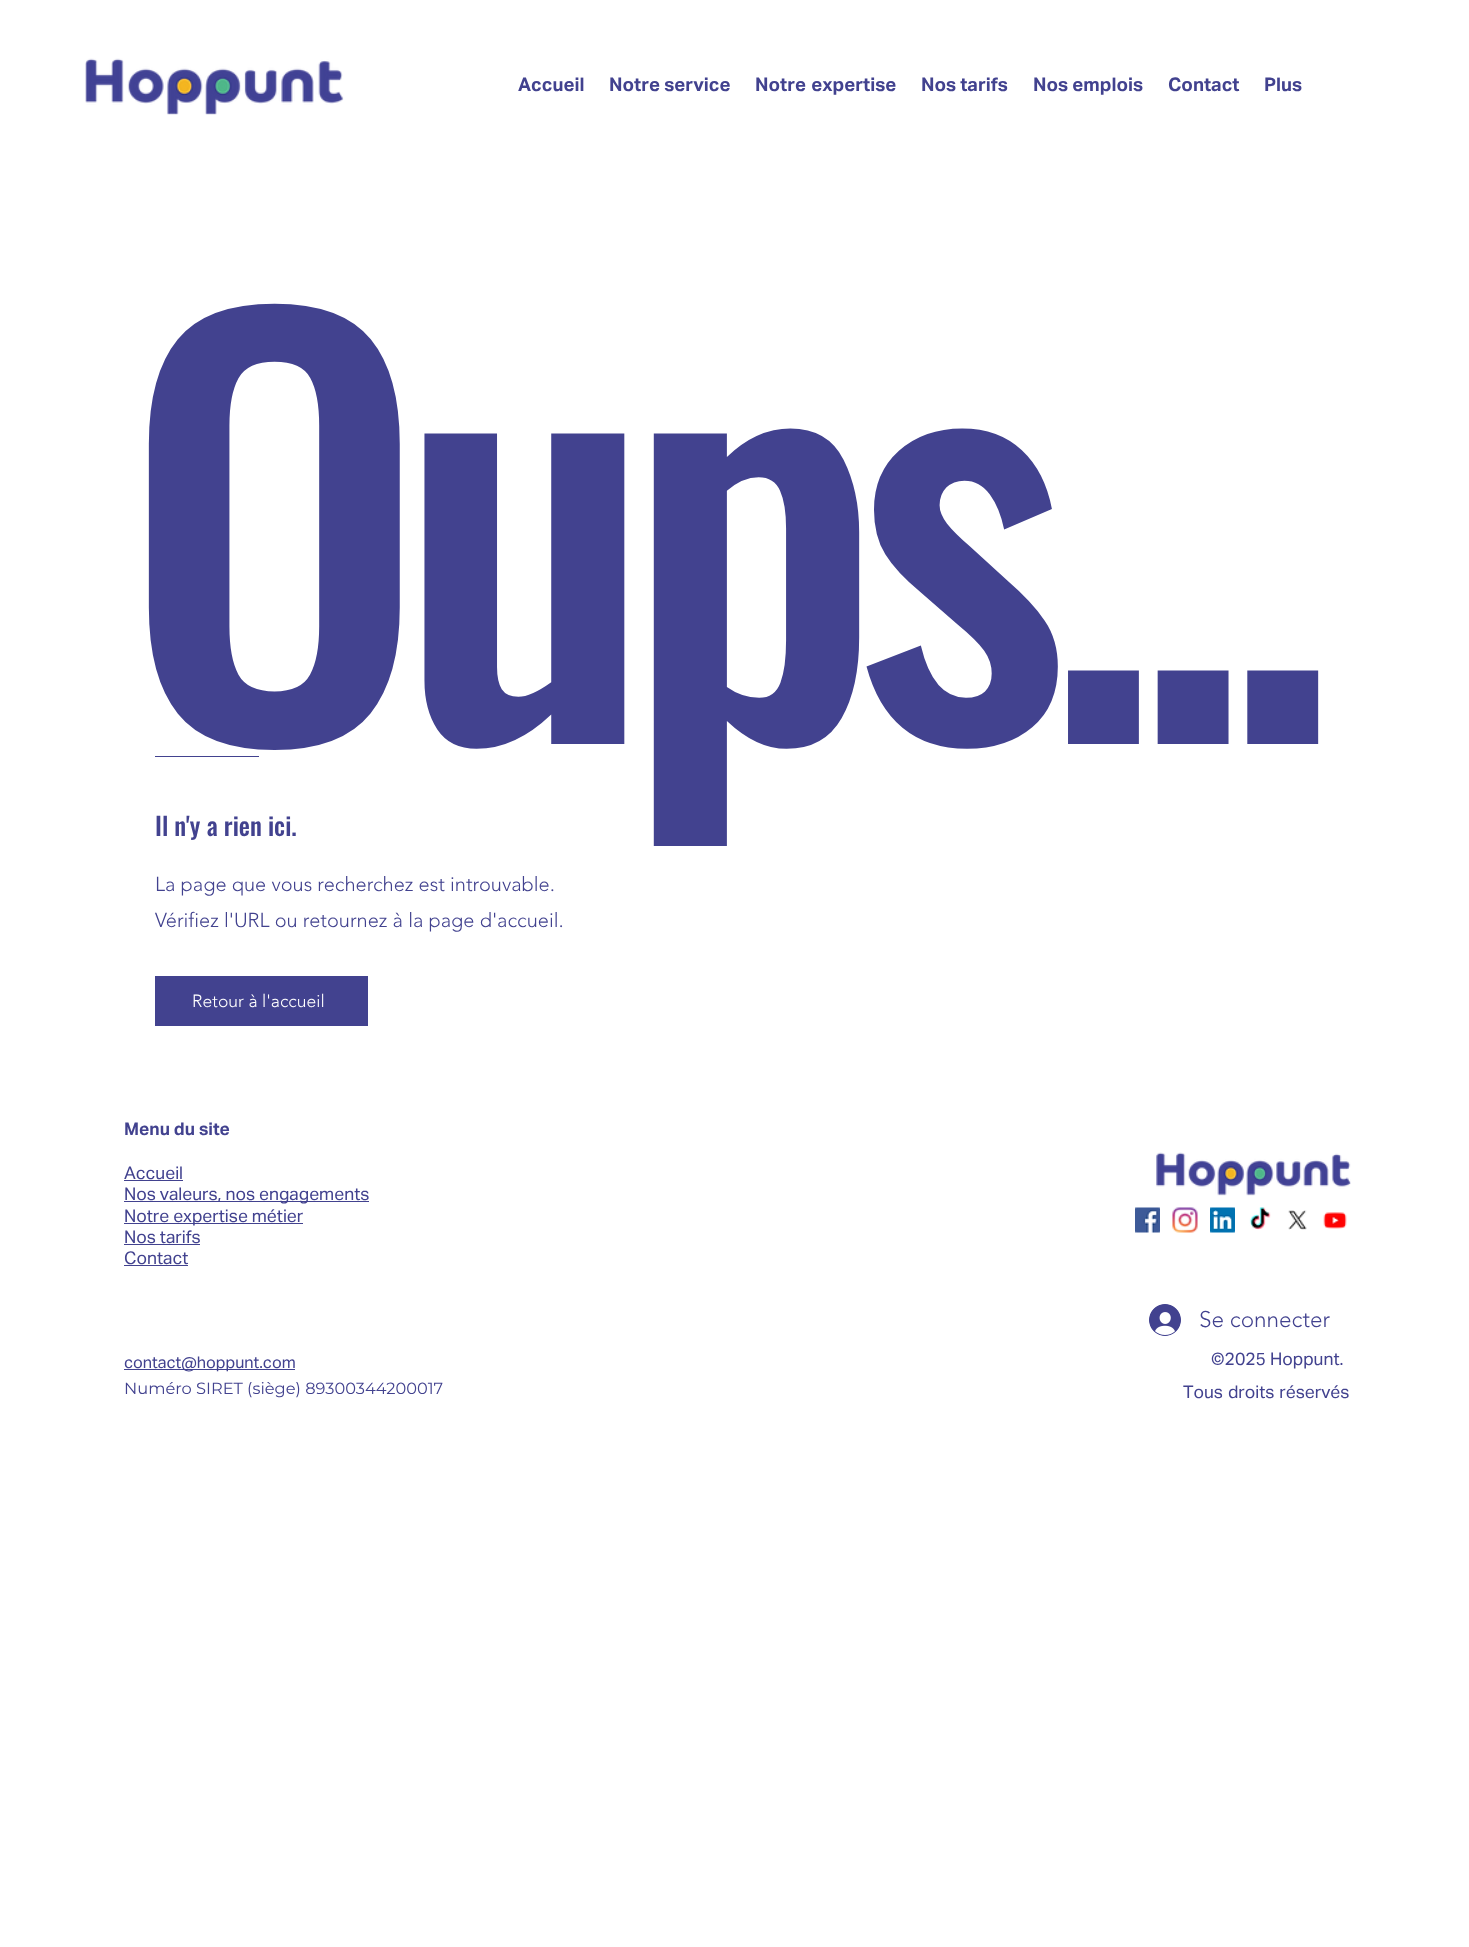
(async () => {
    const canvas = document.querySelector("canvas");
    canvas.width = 1469;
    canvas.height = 1947;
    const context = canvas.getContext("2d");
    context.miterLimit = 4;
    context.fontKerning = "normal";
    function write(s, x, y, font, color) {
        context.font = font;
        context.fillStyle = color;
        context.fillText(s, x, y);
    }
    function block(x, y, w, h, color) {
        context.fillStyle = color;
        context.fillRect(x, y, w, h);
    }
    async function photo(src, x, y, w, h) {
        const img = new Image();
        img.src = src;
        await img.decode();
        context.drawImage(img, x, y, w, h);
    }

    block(0, 0, 1469, 1947, "rgb(255, 255, 255)");
    await photo("media/1.png", 85, 58, 259, 57);
    write("Accueil", 518, 91, "bold 18.75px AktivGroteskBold", "rgb(66, 66, 143)");
    write("Notre service", 609, 91, "bold 18.75px AktivGroteskBold", "rgb(66, 66, 143)");
    context.wordSpacing = "1px";
    write("Notre expertise", 755, 91, "bold 18.75px AktivGroteskBold", "rgb(66, 66, 143)");
    context.wordSpacing = "0px";
    write("Nos tarifs", 921, 91, "bold 18.75px AktivGroteskBold", "rgb(66, 66, 143)");
    write("Nos emplois", 1033, 91, "bold 18.75px AktivGroteskBold", "rgb(66, 66, 143)");
    write("Contact", 1168, 91, "bold 18.75px AktivGroteskBold", "rgb(66, 66, 143)");
    write("Plus", 1264, 91, "bold 18.75px AktivGroteskBold", "rgb(66, 66, 143)");
    context.letterSpacing = "-27px";
    write("Oups...", 123, 744, "500 537.5px Oswald", "rgb(66, 66, 143)");
    block(155, 756, 104, 1, "rgb(66, 66, 143)");
    context.letterSpacing = "0px";
    write("Il n'y a rien ici.", 155, 836, "500 25px Oswald", "rgb(66, 66, 143)");
    write("La page que vous recherchez est introuvable.", 155, 891, "300 20px 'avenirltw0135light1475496'", "rgb(66, 66, 143)");
    write("Vérifiez l'URL ou retournez à la page d'accueil.", 155, 927, "300 20px 'avenirltw0135light1475496'", "rgb(66, 66, 143)");
    block(155, 976, 213, 50, "rgb(66, 66, 143)");
    write("Retour à l'accueil", 192, 1007, "300 17.5px 'avenirltw0135light1475496'", "rgb(255, 255, 255)");
    write("Menu du site", 124, 1135, "bold 17.5px AktivGroteskBold", "rgb(66, 66, 143)");
    write("Accueil", 124, 1179, "17.5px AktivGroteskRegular", "rgb(66, 66, 143)");
    block(124, 1180, 59, 1, "rgb(66, 66, 143)");
    block(124, 1201, 245, 1, "rgb(66, 66, 143)");
    write("Nos valeurs, nos engagements", 124, 1200, "17.5px AktivGroteskRegular", "rgb(66, 66, 143)");
    block(124, 1223, 179, 1, "rgb(66, 66, 143)");
    write("Notre expertise métier", 124, 1222, "17.5px AktivGroteskRegular", "rgb(66, 66, 143)");
    write("Nos tarifs", 124, 1243, "17.5px AktivGroteskRegular", "rgb(66, 66, 143)");
    block(124, 1244, 76, 1, "rgb(66, 66, 143)");
    write("Contact", 124, 1264, "17.5px AktivGroteskRegular", "rgb(66, 66, 143)");
    block(124, 1265, 64, 1, "rgb(66, 66, 143)");
    await photo("media/2.png", 1156, 1152, 195, 44);
    await photo("media/3.png", 1135, 1207, 25, 26);
    await photo("media/4.png", 1172, 1207, 26, 26);
    await photo("media/5.png", 1210, 1207, 25, 26);
    await photo("media/6.png", 1249, 1207, 22, 23);
    await photo("media/7.png", 1288, 1210, 19, 20);
    await photo("media/8.png", 1323, 1212, 24, 17);
    await photo("media/9.png", 1149, 1304, 32, 32);
    write("Se connecter", 1199, 1327, "300 22.5px 'avenirltw0135light1475496'", "rgb(66, 66, 143)");
    block(124, 1369, 171, 1, "rgb(66, 66, 143)");
    write("contact@hoppunt.com", 124, 1368, "16.25px AktivGroteskRegular", "rgb(66, 66, 143)");
    write("©2025 Hoppunt.", 1211, 1365, "17.5px AktivGroteskRegular", "rgb(66, 66, 143)");
    context.wordSpacing = "1px";
    write("Tous droits réservés", 1183, 1398, "17.5px AktivGroteskRegular", "rgb(66, 66, 143)");
    context.wordSpacing = "0px";
    write("Numéro SIRET (siège) 89300344200017", 124, 1394, "16.25px Montserrat", "rgb(66, 66, 143)");
})();
